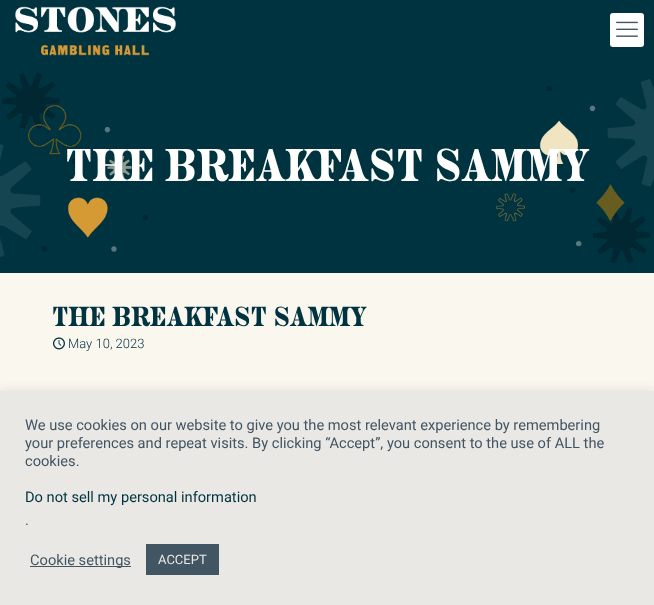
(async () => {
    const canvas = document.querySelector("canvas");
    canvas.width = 654;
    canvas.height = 605;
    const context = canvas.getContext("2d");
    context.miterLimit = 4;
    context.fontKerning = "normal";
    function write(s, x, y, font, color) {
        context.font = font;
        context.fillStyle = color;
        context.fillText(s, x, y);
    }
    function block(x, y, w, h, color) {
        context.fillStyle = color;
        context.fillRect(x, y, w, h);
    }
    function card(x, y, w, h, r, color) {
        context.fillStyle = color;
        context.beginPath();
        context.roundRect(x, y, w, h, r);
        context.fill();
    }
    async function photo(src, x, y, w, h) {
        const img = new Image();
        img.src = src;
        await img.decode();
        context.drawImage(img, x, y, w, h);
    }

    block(0, 0, 654, 605, "rgb(250, 247, 239)");
    block(0, 0, 654, 273, "rgb(0, 51, 64)");
    await photo("media/1.png", 15, 6, 161, 50);
    card(610, 13, 34, 34, 3, "rgb(255, 255, 255)");
    await photo("media/2.png", 616, 21, 22, 16);
    await photo("media/3.png", 0, 72, 654, 192);
    write("THE BREAKFAST SAMMY", 65, 181, "45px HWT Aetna", "rgb(255, 255, 255)");
    write("THE BREAKFAST SAMMY", 52, 326, "27px HWT Aetna", "rgb(0, 51, 64)");
    await photo("media/4.png", 53, 337, 12, 13);
    write("May 10, 2023", 68, 348, "300 13px Roboto", "rgb(0, 51, 64)");
    context.fillStyle = "rgba(172, 171, 171, 0.3)";
    context.filter = "blur(5px)";
    context.beginPath();
    context.rect(0, 390, 654, 214);
    context.fill();
    context.filter = "none";
    block(0, 391, 654, 214, "rgb(234, 232, 229)");
    write("We use cookies on our website to give you the most relevant experience by remembering", 25, 430, "14.65px Roboto", "rgb(66, 85, 99)");
    write("your preferences and repeat visits. By clicking “Accept”, you consent to the use of ALL the", 25, 448, "14.65px Roboto", "rgb(66, 85, 99)");
    write("cookies.", 25, 466, "14.65px Roboto", "rgb(66, 85, 99)");
    write("Do not sell my personal information", 25, 502, "14.65px Roboto", "rgb(0, 51, 64)");
    write(".", 25, 525, "14.65px Roboto", "rgb(66, 85, 99)");
    block(30, 566, 101, 1, "rgb(66, 85, 99)");
    write("Cookie settings", 30, 565, "14.65px Roboto", "rgb(66, 85, 99)");
    block(146, 544, 73, 31, "rgb(66, 85, 99)");
    write("ACCEPT", 158, 564, "13px Roboto", "rgb(234, 232, 229)");
})();
